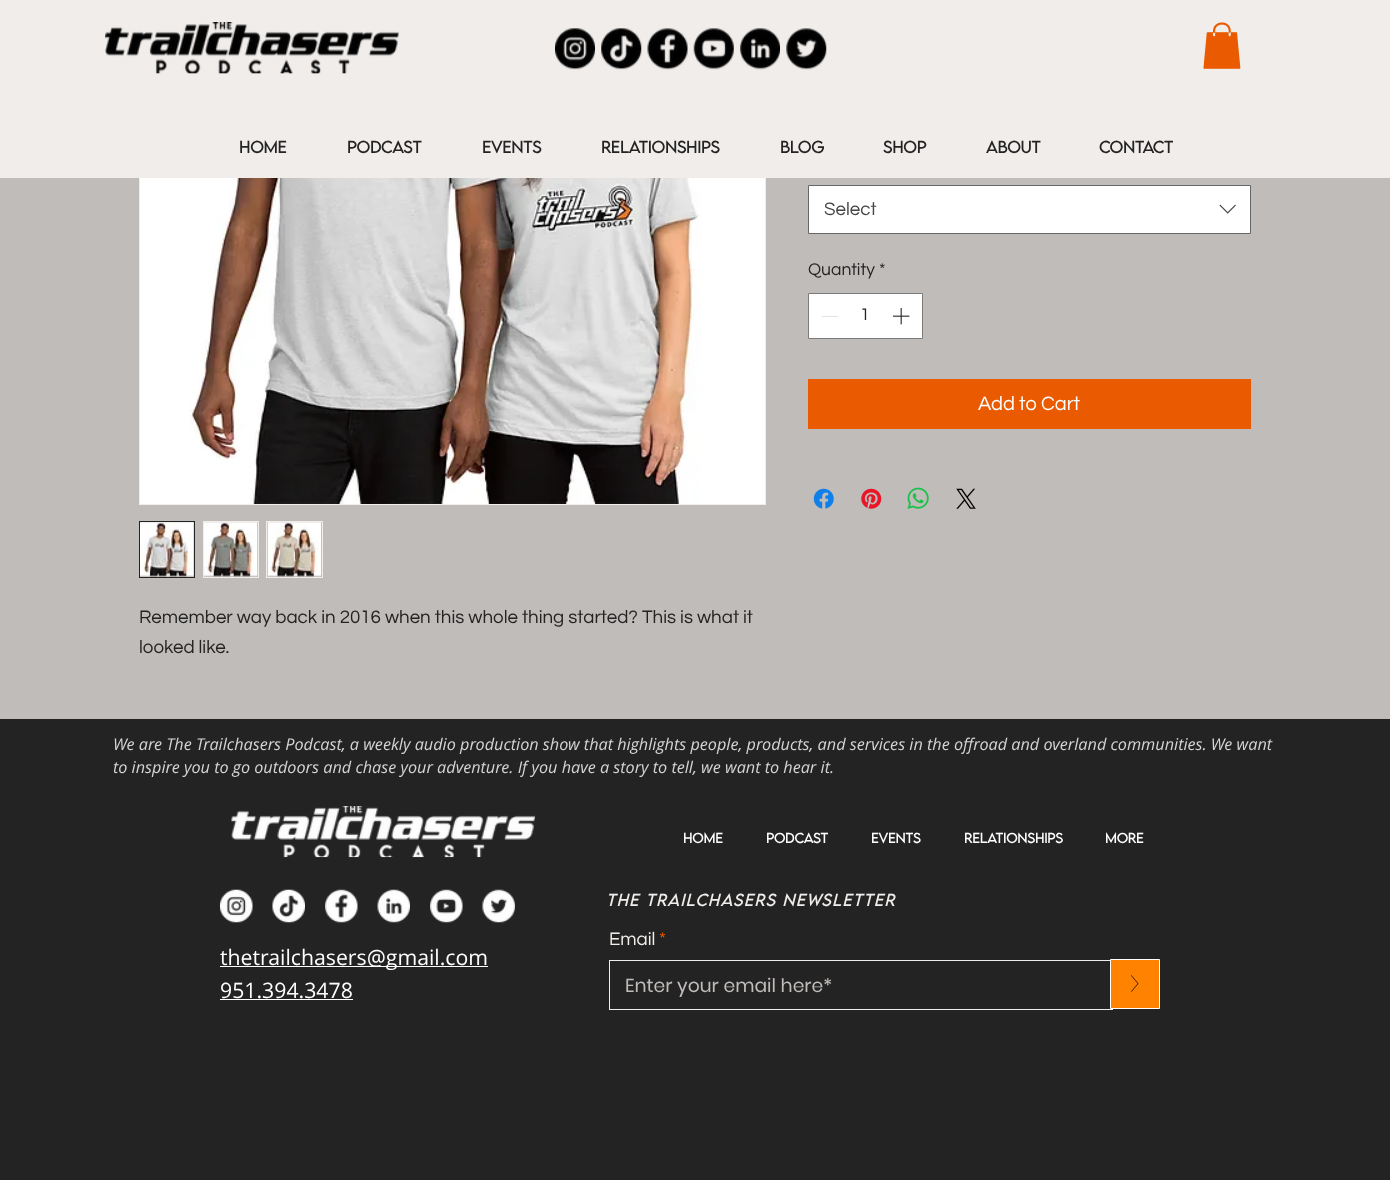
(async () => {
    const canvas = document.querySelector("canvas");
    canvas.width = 1390;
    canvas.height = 1180;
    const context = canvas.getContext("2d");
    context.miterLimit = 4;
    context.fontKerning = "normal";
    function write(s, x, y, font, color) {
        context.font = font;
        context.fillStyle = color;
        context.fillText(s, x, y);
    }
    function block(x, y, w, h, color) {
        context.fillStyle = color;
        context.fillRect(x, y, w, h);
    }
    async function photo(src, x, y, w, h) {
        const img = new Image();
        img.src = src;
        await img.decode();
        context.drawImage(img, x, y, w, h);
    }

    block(0, 0, 1390, 1180, "rgb(191, 188, 186)");
    context.strokeStyle = "rgb(240, 237, 235)";
    context.strokeRect(139.5, -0.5, 626, 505);
    block(0, 0, 1390, 178, "rgb(240, 237, 235)");
    await photo("media/1.png", 105, 22, 294, 52);
    await photo("media/2.png", 555, 28, 40, 42);
    await photo("media/3.png", 601, 28, 41, 42);
    await photo("media/4.png", 647, 28, 41, 42);
    await photo("media/5.png", 693, 28, 41, 42);
    await photo("media/6.png", 740, 28, 40, 42);
    await photo("media/7.png", 786, 28, 41, 42);
    await photo("media/8.png", 1203, 22, 38, 47);
    write("Home", 239, 153, "bold 15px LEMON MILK", "rgb(36, 35, 35)");
    write("Podcast", 347, 153, "bold 15px LEMON MILK", "rgb(36, 35, 35)");
    write("Events", 482, 153, "bold 15px LEMON MILK", "rgb(36, 35, 35)");
    write("Relationships", 601, 153, "bold 15px LEMON MILK", "rgb(36, 35, 35)");
    write("Blog", 780, 153, "bold 15px LEMON MILK", "rgb(36, 35, 35)");
    write("Shop", 883, 153, "bold 15px LEMON MILK", "rgb(36, 35, 35)");
    write("About", 986, 153, "bold 15px LEMON MILK", "rgb(36, 35, 35)");
    write("Contact", 1099, 153, "bold 15px LEMON MILK", "rgb(36, 35, 35)");
    context.fillStyle = "rgb(255, 255, 255)";
    context.beginPath();
    context.rect(808.5, 185.5, 442, 48);
    context.fill();
    context.strokeStyle = "rgb(102, 102, 102)";
    context.stroke();
    write("Select", 824, 215, "18.75px Questrial", "rgb(68, 68, 68)");
    await photo("media/9.png", 1219, 204, 17, 10);
    write("Quantity", 808, 275, "17.5px Questrial", "rgb(36, 35, 35)");
    write("*", 879, 275, "17.5px Questrial", "rgb(36, 35, 35)");
    context.fillStyle = "rgb(255, 255, 255)";
    context.beginPath();
    context.rect(808.5, 293.5, 114, 45);
    context.fill();
    context.strokeStyle = "rgb(124, 123, 123)";
    context.stroke();
    block(822, 316, 16, 1, "rgb(227, 227, 227)");
    write("1", 860, 320, "17.5px Questrial", "rgb(36, 35, 35)");
    await photo("media/10.png", 893, 308, 17, 17);
    block(808, 379, 443, 50, "rgb(234, 90, 0)");
    write("Add to Cart", 978, 410, "20px Questrial", "rgb(255, 255, 255)");
    await photo("media/11.png", 813, 488, 21, 21);
    await photo("media/12.png", 861, 488, 21, 21);
    await photo("media/13.png", 907, 487, 22, 22);
    await photo("media/14.png", 956, 488, 20, 21);
    await photo("media/15.png", 140, 178, 625, 326);
    context.strokeStyle = "rgb(36, 35, 35)";
    context.strokeRect(139.5, 521.5, 55, 56);
    await photo("media/16.png", 140, 522, 54, 55);
    context.strokeStyle = "rgb(240, 237, 235)";
    context.strokeRect(203.5, 521.5, 55, 56);
    await photo("media/17.png", 204, 522, 54, 55);
    context.strokeRect(266.5, 521.5, 56, 56);
    await photo("media/18.png", 267, 522, 55, 55);
    write("Remember way back in 2016 when this whole thing started? This is what it", 139, 623, "18.75px Questrial", "rgb(36, 35, 35)");
    write("looked like.", 139, 653, "18.75px Questrial", "rgb(36, 35, 35)");
    block(0, 719, 1390, 461, "rgb(36, 35, 35)");
    write("We are The Trailchasers Podcast, a weekly audio production show that highlights people, products, and services in the offroad and overland communities. We want", 113, 750, "italic 16.25px Open Sans", "rgb(212, 212, 212)");
    write("to inspire you to go outdoors and chase your adventure. If you have a story to tell, we want to hear it.", 113, 773, "italic 16.25px Open Sans", "rgb(212, 212, 212)");
    await photo("media/19.png", 231, 806, 304, 52);
    await photo("media/20.png", 220, 889, 33, 34);
    await photo("media/21.png", 272, 889, 33, 34);
    await photo("media/22.png", 325, 889, 33, 34);
    await photo("media/23.png", 377, 889, 33, 34);
    await photo("media/24.png", 430, 889, 33, 34);
    await photo("media/25.png", 482, 889, 33, 34);
    block(220, 966, 268, 1, "rgb(255, 255, 255)");
    write("thetrailchasers@gmail.com", 220, 965, "21.25px Open Sans", "rgb(255, 255, 255)");
    write("951.394.3478", 220, 998, "21.25px Open Sans", "rgb(255, 255, 255)");
    block(220, 999, 133, 1, "rgb(255, 255, 255)");
    write("Home", 683, 843, "bold 12.5px LEMON MILK", "rgb(255, 255, 255)");
    write("Podcast", 766, 843, "bold 12.5px LEMON MILK", "rgb(255, 255, 255)");
    write("Events", 871, 843, "bold 12.5px LEMON MILK", "rgb(255, 255, 255)");
    write("Relationships", 964, 843, "bold 12.5px LEMON MILK", "rgb(255, 255, 255)");
    write("More", 1105, 843, "bold 12.5px LEMON MILK", "rgb(255, 255, 255)");
    context.letterSpacing = "1.5px";
    write("The trailchasers Newsletter", 606, 906, "italic bold 15px LEMON MILK", "rgb(240, 237, 235)");
    context.letterSpacing = "0px";
    write("Email", 609, 945, "18.75px Questrial", "rgb(240, 237, 235)");
    write("*", 659, 945, "18.75px Questrial", "rgb(234, 90, 0)");
    context.strokeRect(609.5, 960.5, 503, 49);
    write("Enter your email here*", 625, 992, "18.75px Poppins", "rgb(191, 188, 186)");
    context.fillStyle = "rgb(255, 130, 0)";
    context.beginPath();
    context.rect(1110.5, 959.5, 49, 49);
    context.fill();
    context.strokeStyle = "rgb(255, 255, 255)";
    context.stroke();
    await photo("media/26.png", 1131, 975, 8, 17);
})();
